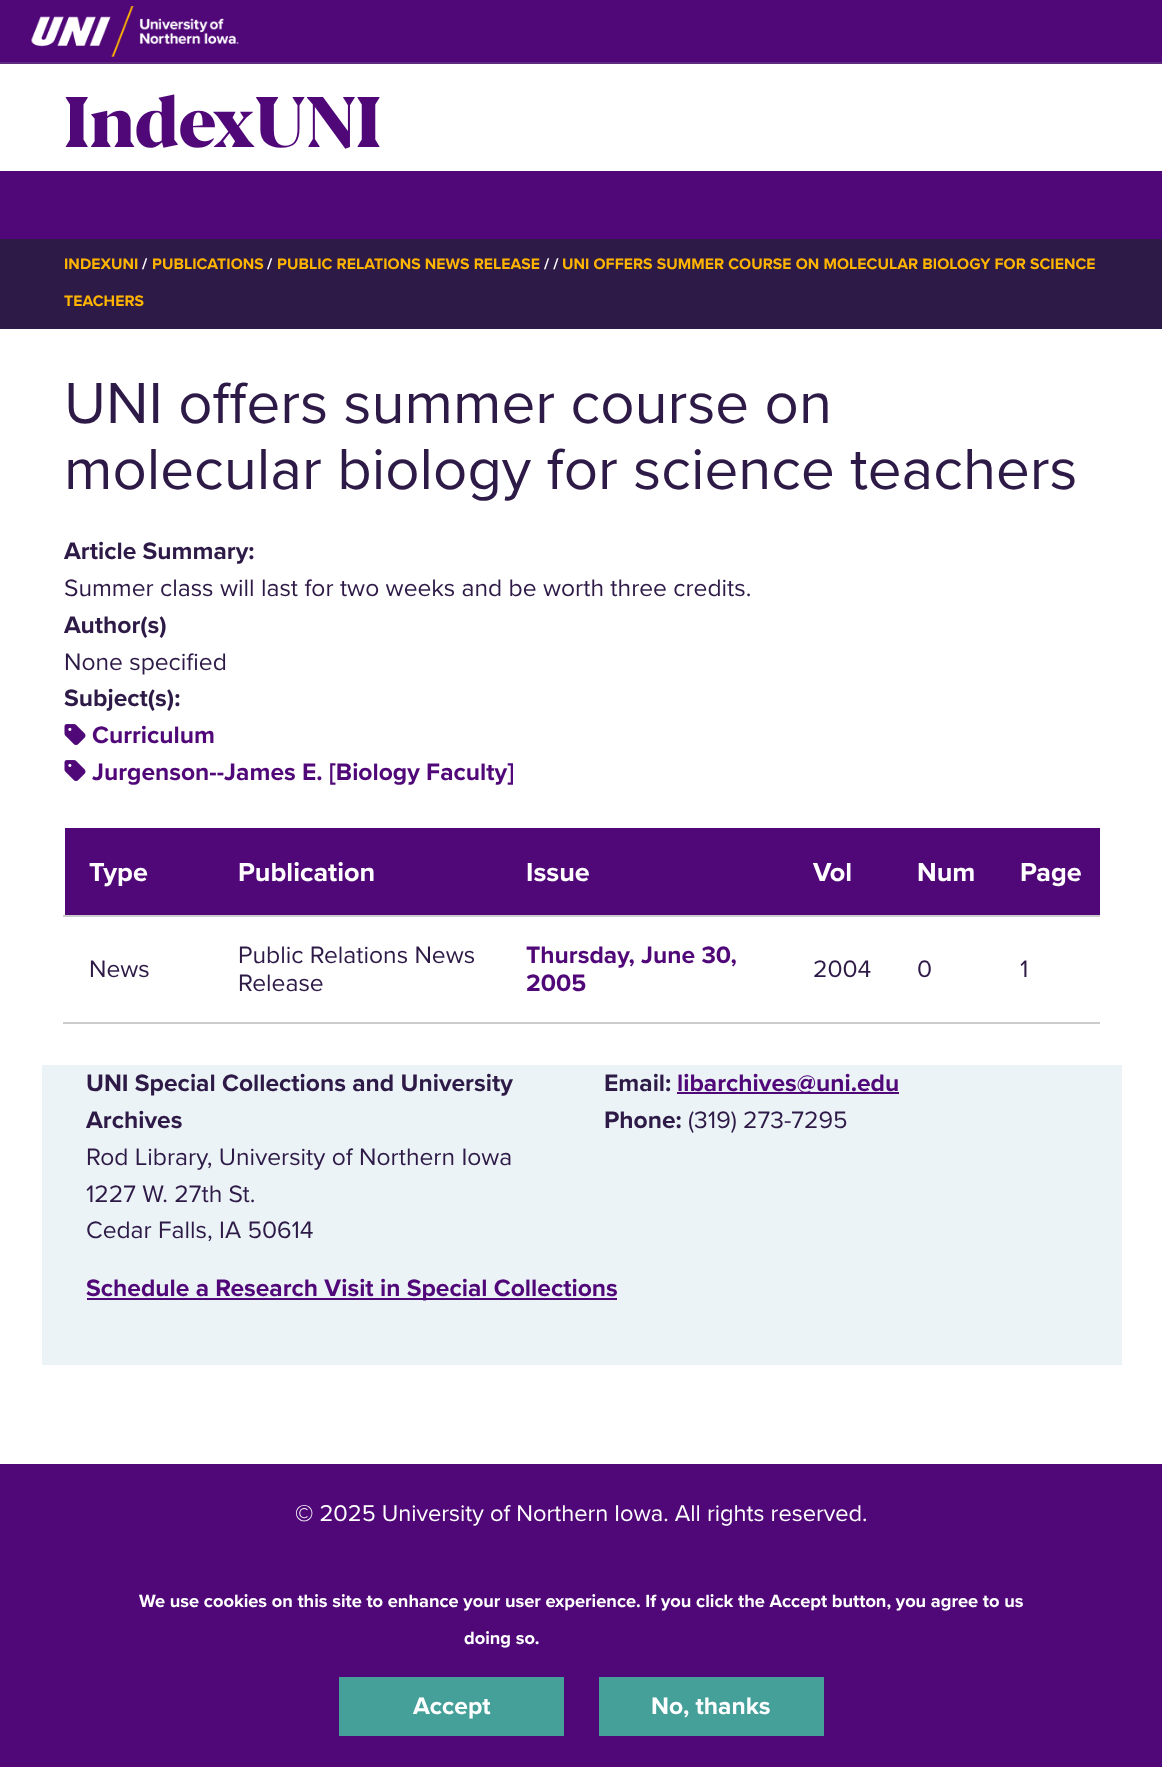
(async () => {
    const canvas = document.querySelector("canvas");
    canvas.width = 1162;
    canvas.height = 1767;
    const context = canvas.getContext("2d");
    context.miterLimit = 4;
    context.fontKerning = "normal";
    function write(s, x, y, font, color) {
        context.font = font;
        context.fillStyle = color;
        context.fillText(s, x, y);
    }
    function block(x, y, w, h, color) {
        context.fillStyle = color;
        context.fillRect(x, y, w, h);
    }
    async function photo(src, x, y, w, h) {
        const img = new Image();
        img.src = src;
        await img.decode();
        context.drawImage(img, x, y, w, h);
    }

    block(0, 0, 1162, 1767, "rgb(255, 255, 255)");
    block(0, 0, 1162, 62, "rgb(80, 7, 120)");
    block(0, 62, 1162, 2, "rgb(96, 44, 126)");
    await photo("media/1.png", 31, 6, 208, 51);
    write("IndexUNI", 64, 147, "900 71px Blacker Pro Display", "rgb(80, 7, 120)");
    block(0, 171, 1162, 68, "rgb(80, 7, 120)");
    block(0, 239, 1162, 90, "rgb(46, 26, 71)");
    context.letterSpacing = "0.05px";
    write("INDEXUNI", 64, 269, "bold 15.75px Proxima Nova", "rgb(255, 181, 0)");
    write("/", 142, 269, "bold 15.75px Proxima Nova", "rgb(255, 255, 255)");
    write("PUBLICATIONS", 152, 269, "bold 15.75px Proxima Nova", "rgb(255, 181, 0)");
    write("/", 267, 269, "bold 15.75px Proxima Nova", "rgb(255, 255, 255)");
    write("PUBLIC RELATIONS NEWS RELEASE", 277, 269, "bold 15.75px Proxima Nova", "rgb(255, 181, 0)");
    write("/ /", 544, 269, "bold 15.75px Proxima Nova", "rgb(255, 255, 255)");
    write("UNI OFFERS SUMMER COURSE ON MOLECULAR BIOLOGY FOR SCIENCE", 562, 269, "bold 15.75px Proxima Nova", "rgb(255, 181, 0)");
    write("TEACHERS", 64, 306, "bold 15.75px Proxima Nova", "rgb(255, 181, 0)");
    context.letterSpacing = "0px";
    write("UNI offers summer course on", 64, 423, "60px Proxima Nova", "rgb(46, 26, 71)");
    write("molecular biology for science teachers", 64, 489, "60px Proxima Nova", "rgb(46, 26, 71)");
    write("Article Summary:", 64, 559, "bold 24.6px Proxima Nova", "rgb(46, 26, 71)");
    write("Summer class will last for two weeks and be worth three credits.", 64, 596, "24.6px Proxima Nova", "rgb(46, 26, 71)");
    write("Author(s)", 64, 633, "bold 24.6px Proxima Nova", "rgb(46, 26, 71)");
    write("None specified", 64, 670, "24.6px Proxima Nova", "rgb(46, 26, 71)");
    write("Subject(s):", 64, 706, "bold 24.6px Proxima Nova", "rgb(46, 26, 71)");
    await photo("media/2.png", 64, 724, 22, 21);
    write("Curriculum", 92, 743, "bold 24.6px Proxima Nova", "rgb(80, 7, 120)");
    await photo("media/2.png", 64, 760, 22, 21);
    write("Jurgenson--James E. [Biology Faculty]", 92, 780, "bold 24.6px Proxima Nova", "rgb(80, 7, 120)");
    block(63, 915, 1037, 2, "rgb(204, 204, 204)");
    block(65, 828, 1035, 87, "rgb(80, 7, 120)");
    write("Type", 89, 881, "bold 27px Proxima Nova", "rgb(255, 255, 255)");
    write("Publication", 238, 881, "bold 27px Proxima Nova", "rgb(255, 255, 255)");
    write("Issue", 526, 881, "bold 27px Proxima Nova", "rgb(255, 255, 255)");
    write("Vol", 813, 881, "bold 27px Proxima Nova", "rgb(255, 255, 255)");
    write("Num", 917, 881, "bold 27px Proxima Nova", "rgb(255, 255, 255)");
    write("Page", 1020, 881, "bold 27px Proxima Nova", "rgb(255, 255, 255)");
    block(63, 1022, 1037, 2, "rgb(204, 204, 204)");
    write("News", 89, 977, "24.6px Proxima Nova", "rgb(46, 26, 71)");
    write("Public Relations News", 238, 963, "24.6px Proxima Nova", "rgb(46, 26, 71)");
    write("Release", 238, 991, "24.6px Proxima Nova", "rgb(46, 26, 71)");
    write("Thursday, June 30,", 526, 963, "bold 24.6px Proxima Nova", "rgb(80, 7, 120)");
    write("2005", 526, 991, "bold 24.6px Proxima Nova", "rgb(80, 7, 120)");
    write("2004", 813, 977, "24.6px Proxima Nova", "rgb(46, 26, 71)");
    write("0", 917, 977, "24.6px Proxima Nova", "rgb(46, 26, 71)");
    write("1", 1020, 977, "24.6px Proxima Nova", "rgb(46, 26, 71)");
    block(42, 1065, 1080, 300, "rgb(236, 243, 247)");
    write("UNI Special Collections and University", 86, 1091, "bold 24.6px Proxima Nova", "rgb(46, 26, 71)");
    write("Archives", 86, 1128, "bold 24.6px Proxima Nova", "rgb(46, 26, 71)");
    write("Rod Library, University of Northern Iowa", 86, 1165, "24.6px Proxima Nova", "rgb(46, 26, 71)");
    write("1227 W. 27th St.", 86, 1202, "24.6px Proxima Nova", "rgb(46, 26, 71)");
    write("Cedar Falls, IA 50614", 86, 1238, "24.6px Proxima Nova", "rgb(46, 26, 71)");
    write("E‌mail:", 604, 1091, "bold 24.6px Proxima Nova", "rgb(46, 26, 71)");
    block(677, 1092, 222, 2, "rgb(80, 7, 120)");
    write("libarchives@uni.edu", 677, 1091, "bold 24.6px Proxima Nova", "rgb(80, 7, 120)");
    write("Phone:", 604, 1128, "bold 24.6px Proxima Nova", "rgb(46, 26, 71)");
    write("(319) 273-7295", 688, 1128, "24.6px Proxima Nova", "rgb(46, 26, 71)");
    block(87, 1298, 530, 2, "rgb(80, 7, 120)");
    write("‌Schedule a Research Visit in Special Collections", 86, 1296, "bold 24.6px Proxima Nova", "rgb(80, 7, 120)");
    block(0, 1464, 1162, 303, "rgb(80, 7, 120)");
    write("© 2025 University of Northern Iowa. All rights reserved.", 295, 1521, "23.6px Proxima Nova", "rgb(255, 255, 255)");
    write("We use cookies on this site to enhance your user experience. If you click the Accept button, you agree to us", 139, 1607, "bold 18.25px Proxima Nova", "rgb(255, 255, 255)");
    write("doing so.", 464, 1644, "bold 18.25px Proxima Nova", "rgb(255, 255, 255)");
    block(339, 1677, 225, 59, "rgb(70, 160, 154)");
    write("Accept", 413, 1714, "bold 24.6px Proxima Nova", "rgb(255, 255, 255)");
    block(599, 1677, 225, 59, "rgb(70, 160, 154)");
    write("No, thanks", 651, 1714, "bold 24.6px Proxima Nova", "rgb(255, 255, 255)");
})();
